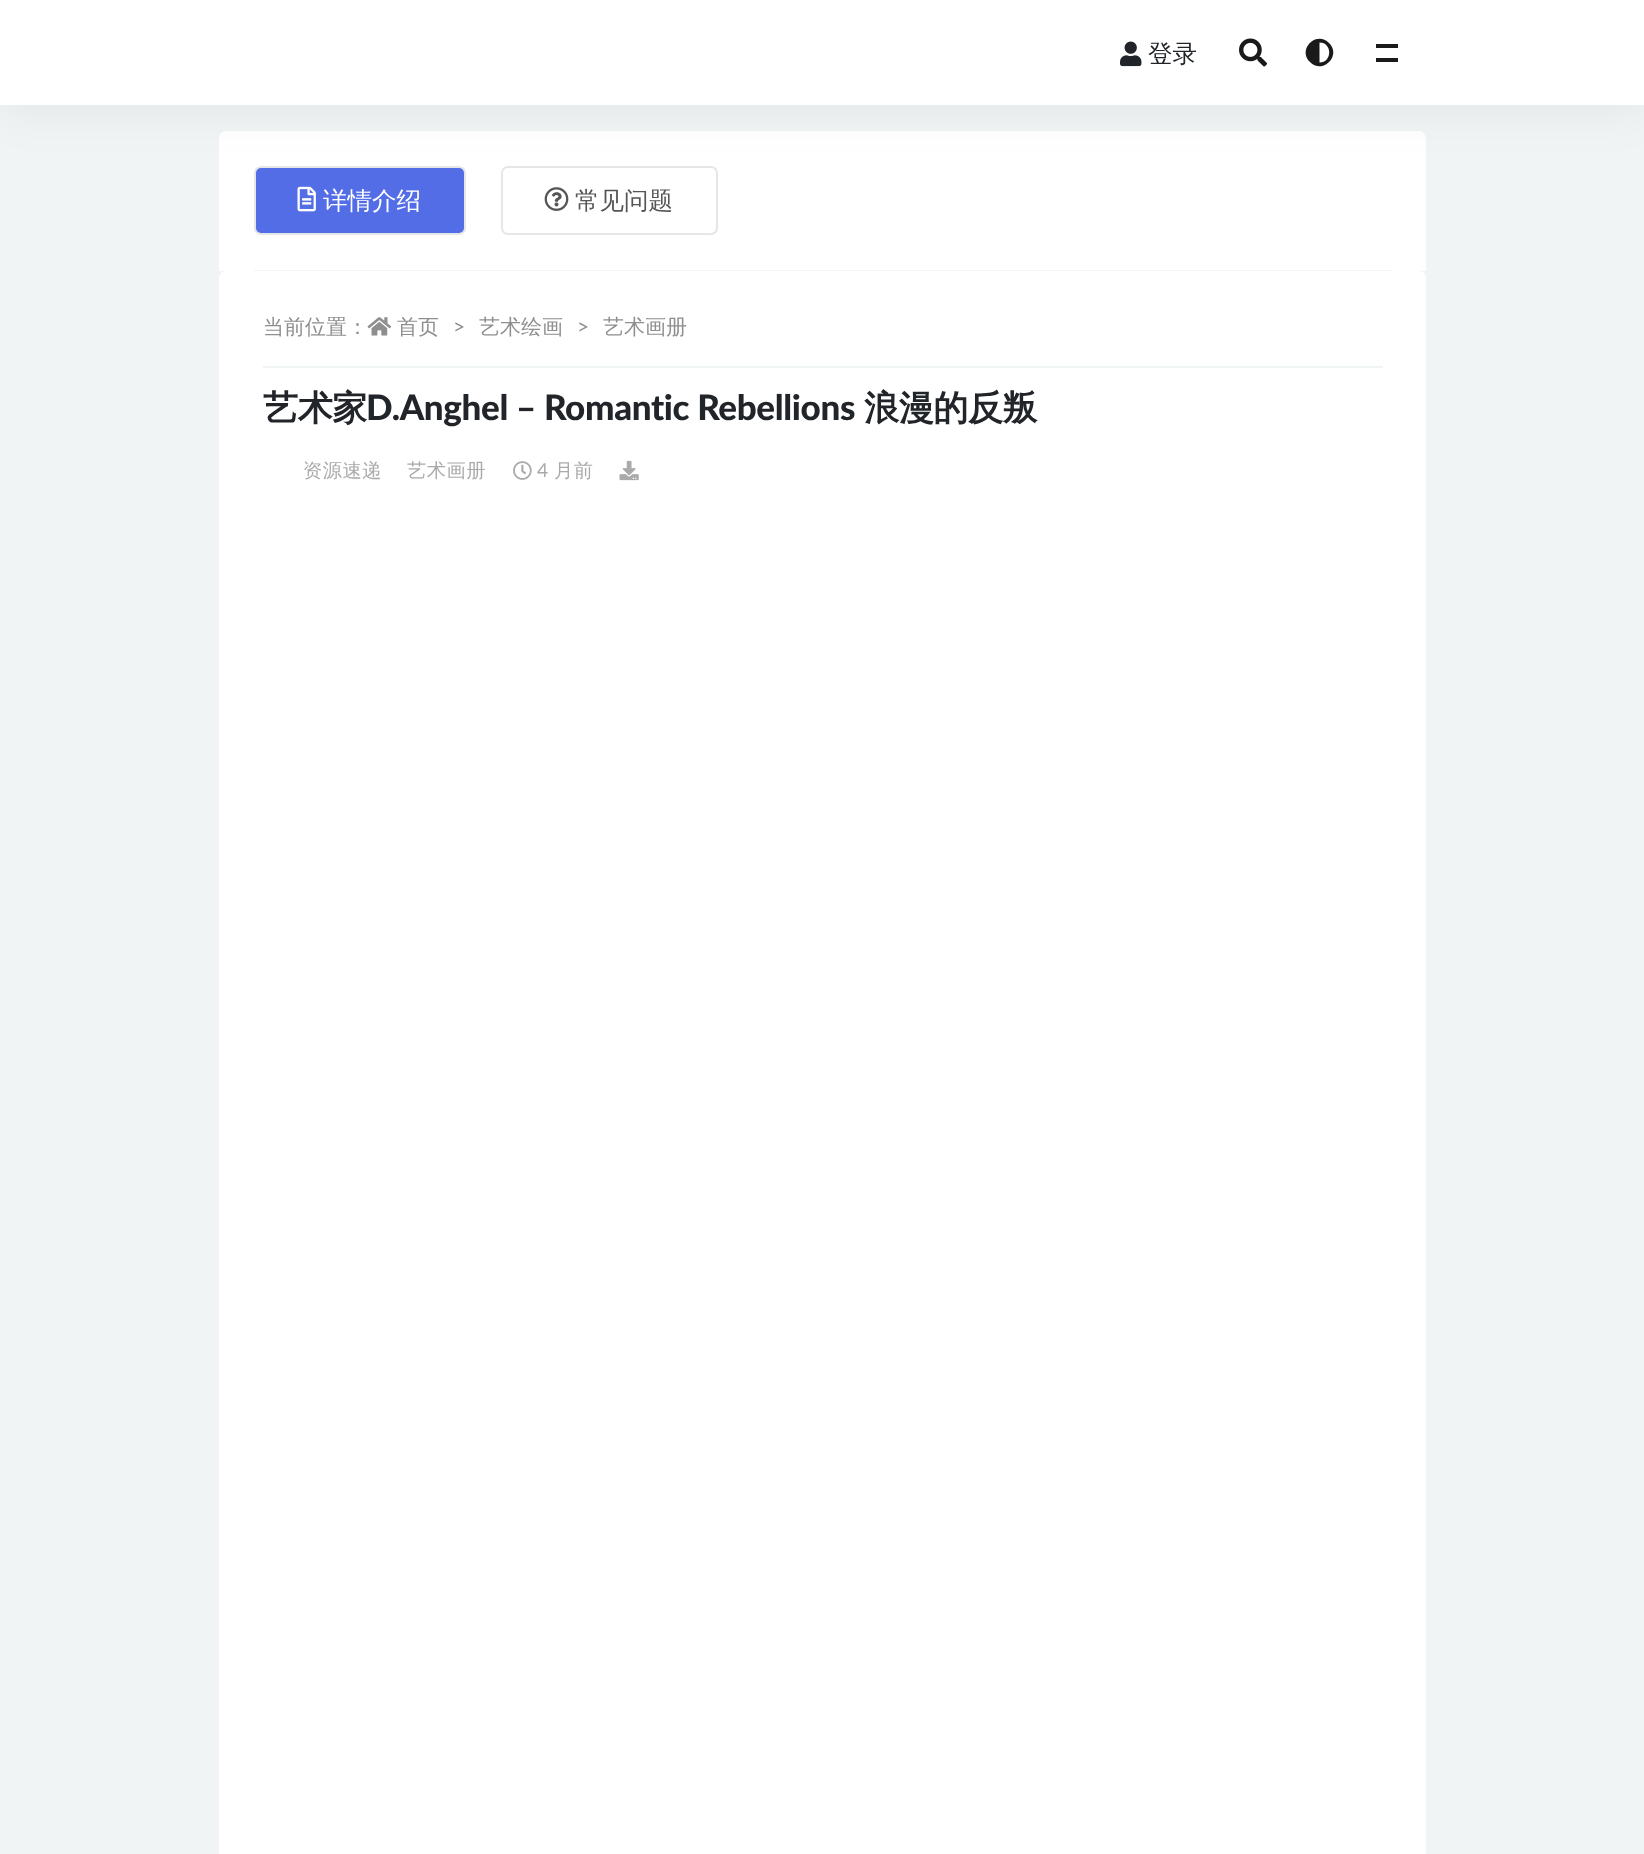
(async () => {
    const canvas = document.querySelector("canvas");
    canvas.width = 1644;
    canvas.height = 1854;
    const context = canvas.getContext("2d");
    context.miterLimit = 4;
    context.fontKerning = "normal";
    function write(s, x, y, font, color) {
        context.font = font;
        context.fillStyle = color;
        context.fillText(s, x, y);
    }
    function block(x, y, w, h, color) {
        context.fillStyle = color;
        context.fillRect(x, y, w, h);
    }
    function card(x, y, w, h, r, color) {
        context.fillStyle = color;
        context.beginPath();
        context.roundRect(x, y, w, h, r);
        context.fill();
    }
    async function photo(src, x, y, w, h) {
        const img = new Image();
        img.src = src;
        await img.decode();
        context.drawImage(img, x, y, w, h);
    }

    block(0, 0, 1644, 1854, "rgb(240, 244, 245)");
    context.fillStyle = "rgb(255, 255, 255)";
    context.beginPath();
    context.roundRect(219, 131, 1207, 140, [7, 7, 0, 0]);
    context.fill();
    context.fillStyle = "rgb(83, 109, 230)";
    context.beginPath();
    context.roundRect(255, 167, 210, 67, 6);
    context.fill();
    context.strokeStyle = "rgb(228, 230, 232)";
    context.lineWidth = 2;
    context.stroke();
    context.beginPath();
    context.roundRect(502, 167, 215, 67, 6);
    context.stroke();
    context.fillStyle = "rgba(0, 0, 0, 0.07)";
    context.filter = "blur(26px)";
    context.beginPath();
    context.rect(0, 0, 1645, 105);
    context.fill();
    context.filter = "none";
    block(0, 0, 1644, 105, "rgb(255, 255, 255)");
    await photo("media/1.png", 1120, 41, 22, 26);
    write("登录", 1148, 62, "500 24.5px WenQuanYi Zen Hei", "rgb(33, 37, 41)");
    await photo("media/2.png", 1239, 38, 28, 29);
    context.fillStyle = "rgb(26, 26, 26)";
    context.beginPath();
    context.moveTo(1310, 62);
    context.bezierCurveTo(1297, 49.5, 1316.5, 30, 1329, 43);
    context.bezierCurveTo(1342, 55.5, 1322.5, 75, 1310, 62);
    context.closePath();
    context.moveTo(1319.5, 62.5);
    context.bezierCurveTo(1332.5, 62.5, 1332.5, 42.5, 1319.5, 42.5);
    context.closePath();
    context.fill();
    block(1376, 44, 22, 4, "rgb(26, 26, 26)");
    block(1376, 58, 22, 4, "rgb(26, 26, 26)");
    block(254, 270, 1137, 1, "rgb(240, 244, 245)");
    await photo("media/3.png", 297, 186, 19, 26);
    write("详情介绍", 323, 209, "500 24.5px WenQuanYi Zen Hei", "rgb(255, 255, 255)");
    await photo("media/4.png", 544, 187, 25, 24);
    write("常见问题", 575, 209, "500 24.5px WenQuanYi Zen Hei", "rgb(85, 85, 85)");
    card(219, 271, 1207, 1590, 7, "rgb(255, 255, 255)");
    block(263, 366, 1120, 2, "rgb(240, 244, 245)");
    write("当前位置：", 263, 334, "500 21px WenQuanYi Zen Hei", "rgb(143, 143, 143)");
    await photo("media/5.png", 367, 317, 25, 19);
    write("首页", 397, 334, "500 21px WenQuanYi Zen Hei", "rgb(143, 143, 143)");
    write(">", 453, 334, "21px Lato", "rgb(143, 143, 143)");
    write("艺术绘画", 479, 334, "500 21px WenQuanYi Zen Hei", "rgb(143, 143, 143)");
    write(">", 577, 334, "21px Lato", "rgb(143, 143, 143)");
    write("艺术画册", 603, 334, "500 21px WenQuanYi Zen Hei", "rgb(143, 143, 143)");
    context.letterSpacing = "-0.35px";
    write("艺术家", 263, 420, "bold 35px WenQuanYi Zen Hei", "rgb(33, 37, 41)");
    write("D.Anghel – Romantic Rebellions", 366, 420, "900 35px Lato", "rgb(33, 37, 41)");
    write("浪漫的反叛", 864, 420, "bold 35px WenQuanYi Zen Hei", "rgb(33, 37, 41)");
    context.letterSpacing = "0.5px";
    write("资源速递", 303, 477, "500 19.25px WenQuanYi Zen Hei", "rgb(170, 170, 170)");
    write("艺术画册", 407, 477, "500 19.25px WenQuanYi Zen Hei", "rgb(170, 170, 170)");
    await photo("media/6.png", 513, 461, 19, 19);
    write("4", 537, 477, "19.25px Lato", "rgb(170, 170, 170)");
    write("月前", 554, 477, "500 19.25px WenQuanYi Zen Hei", "rgb(170, 170, 170)");
    await photo("media/7.png", 619, 460, 20, 21);
})();
